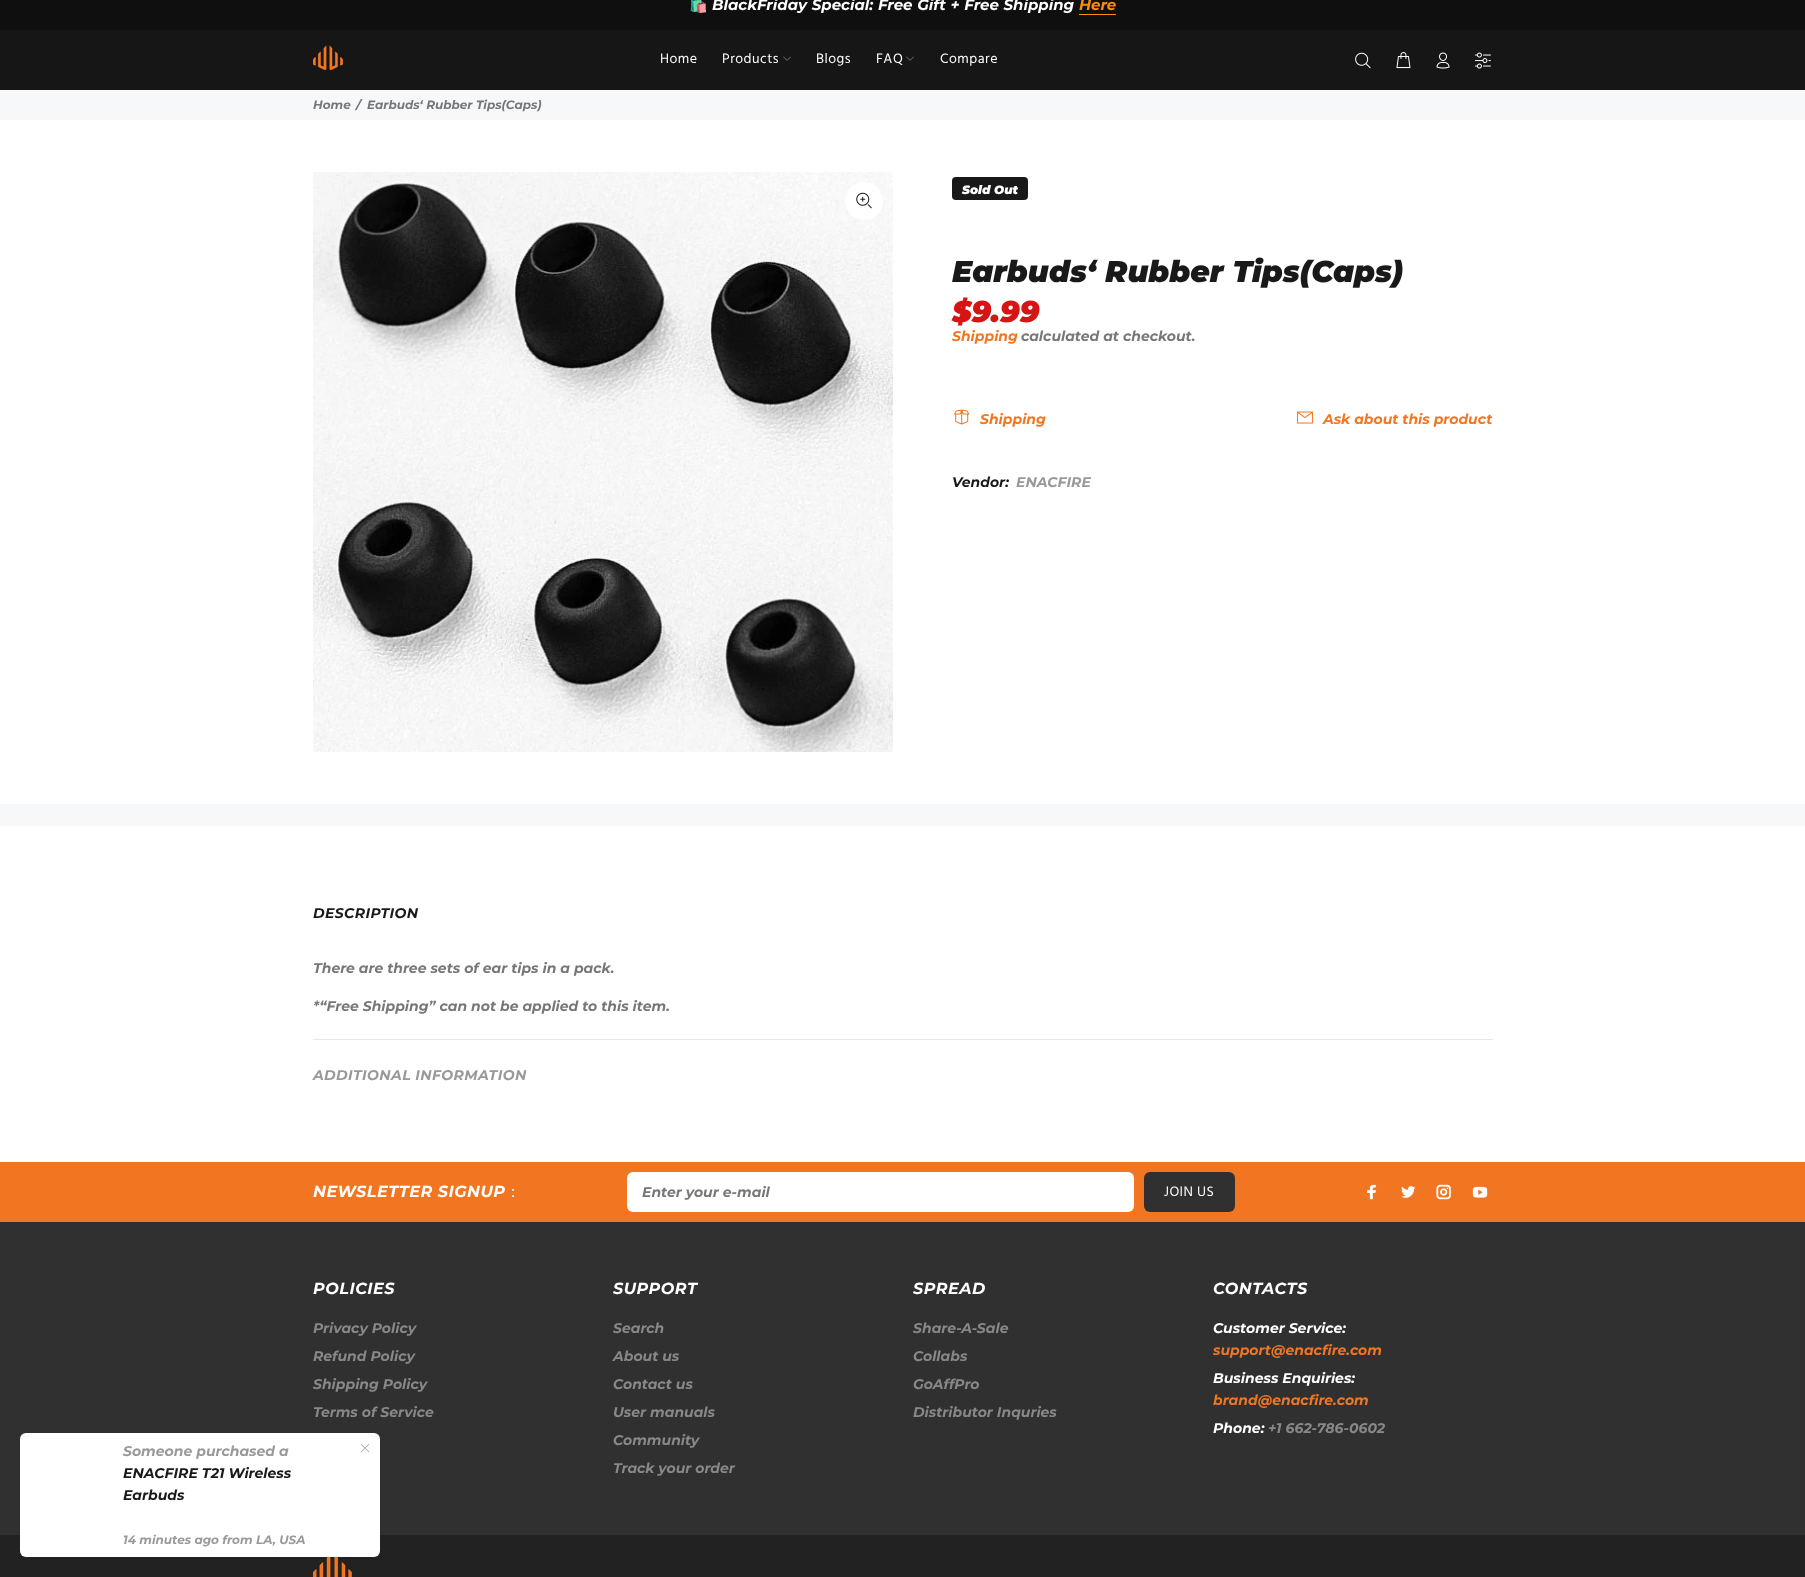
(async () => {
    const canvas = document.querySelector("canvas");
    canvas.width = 1805;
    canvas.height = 1577;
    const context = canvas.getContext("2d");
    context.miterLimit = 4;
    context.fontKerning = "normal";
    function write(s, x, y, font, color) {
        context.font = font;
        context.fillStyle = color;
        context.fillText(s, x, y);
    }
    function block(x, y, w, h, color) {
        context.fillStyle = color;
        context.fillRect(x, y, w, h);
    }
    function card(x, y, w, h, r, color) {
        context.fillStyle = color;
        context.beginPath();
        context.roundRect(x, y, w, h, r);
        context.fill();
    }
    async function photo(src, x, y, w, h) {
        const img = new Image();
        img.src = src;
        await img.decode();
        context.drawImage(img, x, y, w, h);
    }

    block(0, 0, 1805, 1577, "rgb(255, 255, 255)");
    block(0, 30, 1805, 60, "rgb(22, 22, 23)");
    block(0, 0, 1805, 30, "rgb(15, 15, 15)");
    write("🛍️", 689, 10, "15px Noto Color Emoji", "rgb(255, 255, 255)");
    context.wordSpacing = "0.5px";
    write("BlackFriday Special: Free Gift + Free Shipping", 712, 10, "italic bold 15px Montserrat", "rgb(255, 255, 255)");
    context.wordSpacing = "0px";
    write("Here", 1079, 10, "italic bold 15px Montserrat", "rgb(253, 140, 8)");
    block(1079, 14, 37, 1, "rgb(253, 140, 8)");
    await photo("media/1.png", 313, 45, 30, 26);
    context.letterSpacing = "0.5px";
    write("Home", 660, 63, "14px Hind", "rgb(255, 255, 255)");
    write("Products", 722, 63, "14px Hind", "rgb(255, 255, 255)");
    await photo("media/2.png", 783, 56, 8, 5);
    write("Blogs", 816, 63, "14px Hind", "rgb(255, 255, 255)");
    write("FAQ", 876, 63, "14px Hind", "rgb(255, 255, 255)");
    await photo("media/2.png", 906, 56, 8, 5);
    write("Compare", 940, 63, "14px Hind", "rgb(255, 255, 255)");
    await photo("media/3.png", 1355, 52, 16, 17);
    await photo("media/4.png", 1396, 52, 15, 17);
    await photo("media/5.png", 1436, 52, 14, 17);
    await photo("media/6.png", 1474, 52, 17, 17);
    block(0, 90, 1805, 30, "rgb(247, 248, 250)");
    context.letterSpacing = "0px";
    write("Home", 313, 109, "italic bold 12px Montserrat", "rgb(119, 119, 119)");
    write("/", 356, 109, "italic bold 12px Montserrat", "rgb(119, 119, 119)");
    write("Earbuds‘ Rubber Tips(Caps)", 367, 109, "italic bold 12px Montserrat", "rgb(119, 119, 119)");
    await photo("media/7.png", 313, 172, 580, 580);
    context.fillStyle = "rgb(255, 255, 255)";
    context.beginPath();
    context.arc(864, 201, 19, 0, Math.PI * 2);
    context.fill();
    await photo("media/8.png", 856, 192, 16, 17);
    card(952, 177, 76, 23, 4, "rgb(25, 25, 25)");
    write("Sold Out", 962, 194, "italic 900 12px Montserrat", "rgb(255, 255, 255)");
    write("Earbuds‘ Rubber Tips(Caps)", 952, 282, "italic 900 30px Montserrat", "rgb(25, 25, 25)");
    write("$9.99", 952, 322, "italic 900 30px Montserrat", "rgb(214, 20, 20)");
    write("Shipping", 952, 341, "italic bold 14px Montserrat", "rgb(242, 118, 33)");
    write("calculated at checkout.", 1021, 341, "italic bold 14px Montserrat", "rgb(119, 119, 119)");
    await photo("media/9.png", 954, 409, 16, 16);
    write("Shipping", 980, 424, "italic bold 14px Montserrat", "rgb(242, 118, 33)");
    await photo("media/10.png", 1296, 411, 17, 13);
    write("Ask about this product", 1323, 424, "italic bold 14px Montserrat", "rgb(242, 118, 33)");
    write("Vendor:", 952, 487, "italic bold 14px Montserrat", "rgb(25, 25, 25)");
    write("ENACFIRE", 1016, 487, "italic bold 14px Montserrat", "rgb(153, 153, 153)");
    block(0, 804, 1805, 22, "rgb(247, 248, 250)");
    block(313, 1039, 1180, 1, "rgb(233, 231, 231)");
    context.letterSpacing = "0.4px";
    write("DESCRIPTION", 313, 918, "italic bold 14px Montserrat", "rgb(25, 25, 25)");
    context.letterSpacing = "0px";
    write("There are three sets of ear tips in a pack.", 313, 973, "italic bold 14px Montserrat", "rgb(119, 119, 119)");
    write("*“Free Shipping” can not be applied to this item.", 313, 1011, "italic bold 14px Montserrat", "rgb(119, 119, 119)");
    context.letterSpacing = "0.4px";
    write("ADDITIONAL INFORMATION", 313, 1080, "italic bold 14px Montserrat", "rgb(153, 153, 153)");
    block(0, 1222, 1805, 313, "rgb(48, 48, 48)");
    block(0, 1162, 1805, 60, "rgb(242, 118, 33)");
    context.letterSpacing = "0.5px";
    write("NEWSLETTER SIGNUP", 313, 1197, "italic bold 16px Montserrat", "rgb(255, 255, 255)");
    write("：", 505, 1197, "500 16px WenQuanYi Zen Hei", "rgb(255, 255, 255)");
    card(627, 1172, 507, 40, 6, "rgb(255, 255, 255)");
    context.letterSpacing = "0px";
    write("Enter your e-mail", 642, 1197, "italic bold 14px Montserrat", "rgb(119, 119, 119)");
    card(1144, 1172, 91, 40, 6, "rgb(48, 48, 48)");
    context.letterSpacing = "0.4px";
    write("JOIN US", 1164, 1196, "14px Hind", "rgb(255, 255, 255)");
    await photo("media/11.png", 1367, 1184, 10, 16);
    await photo("media/12.png", 1401, 1186, 15, 12);
    await photo("media/13.png", 1436, 1184, 15, 16);
    await photo("media/14.png", 1472, 1186, 16, 12);
    context.letterSpacing = "0.5px";
    write("POLICIES", 313, 1294, "italic bold 16px Montserrat", "rgb(255, 255, 255)");
    context.letterSpacing = "0px";
    write("Privacy Policy", 313, 1333, "italic bold 14px Montserrat", "rgb(136, 136, 136)");
    write("Refund Policy", 313, 1361, "italic bold 14px Montserrat", "rgb(136, 136, 136)");
    write("Shipping Policy", 313, 1389, "italic bold 14px Montserrat", "rgb(136, 136, 136)");
    write("Terms of Service", 313, 1417, "italic bold 14px Montserrat", "rgb(136, 136, 136)");
    context.letterSpacing = "0.5px";
    write("SUPPORT", 613, 1294, "italic bold 16px Montserrat", "rgb(255, 255, 255)");
    context.letterSpacing = "0px";
    write("Search", 613, 1333, "italic bold 14px Montserrat", "rgb(136, 136, 136)");
    write("About us", 613, 1361, "italic bold 14px Montserrat", "rgb(136, 136, 136)");
    write("Contact us", 613, 1389, "italic bold 14px Montserrat", "rgb(136, 136, 136)");
    write("User manuals", 613, 1417, "italic bold 14px Montserrat", "rgb(136, 136, 136)");
    write("Community", 613, 1445, "italic bold 14px Montserrat", "rgb(136, 136, 136)");
    write("Track your order", 613, 1473, "italic bold 14px Montserrat", "rgb(136, 136, 136)");
    context.letterSpacing = "0.5px";
    write("SPREAD", 913, 1294, "italic bold 16px Montserrat", "rgb(255, 255, 255)");
    context.letterSpacing = "0px";
    write("Share-A-Sale", 913, 1333, "italic bold 14px Montserrat", "rgb(136, 136, 136)");
    write("Collabs", 913, 1361, "italic bold 14px Montserrat", "rgb(136, 136, 136)");
    write("GoAffPro", 913, 1389, "italic bold 14px Montserrat", "rgb(136, 136, 136)");
    write("Distributor Inquries", 913, 1417, "italic bold 14px Montserrat", "rgb(136, 136, 136)");
    context.letterSpacing = "0.5px";
    write("CONTACTS", 1213, 1294, "italic bold 16px Montserrat", "rgb(255, 255, 255)");
    context.letterSpacing = "0px";
    write("Customer Service:", 1213, 1333, "italic bold 14px Montserrat", "rgb(255, 255, 255)");
    write("support@enacfire.com", 1213, 1355, "italic bold 14px Montserrat", "rgb(242, 118, 33)");
    write("Business Enquiries:", 1213, 1383, "italic bold 14px Montserrat", "rgb(255, 255, 255)");
    write("brand@enacfire.com", 1213, 1405, "italic bold 14px Montserrat", "rgb(242, 118, 33)");
    write("Phone:", 1213, 1433, "italic bold 14px Montserrat", "rgb(255, 255, 255)");
    write("+1 662-786-0602", 1268, 1433, "italic bold 14px Montserrat", "rgb(136, 136, 136)");
    block(0, 1535, 1805, 42, "rgb(34, 34, 34)");
    await photo("media/15.png", 313, 1557, 39, 20);
    card(20, 1433, 360, 124, 6, "rgb(255, 255, 255)");
    write("Someone purchased a", 123, 1456, "italic bold 14px Montserrat", "rgb(153, 153, 153)");
    write("ENACFIRE T21 Wireless", 123, 1478, "italic bold 14px Montserrat", "rgb(25, 25, 25)");
    write("Earbuds", 123, 1500, "italic bold 14px Montserrat", "rgb(25, 25, 25)");
    write("14 minutes ago from LA, USA", 123, 1544, "italic bold 12px Montserrat", "rgb(153, 153, 153)");
    await photo("media/16.png", 360, 1444, 10, 9);
})();
